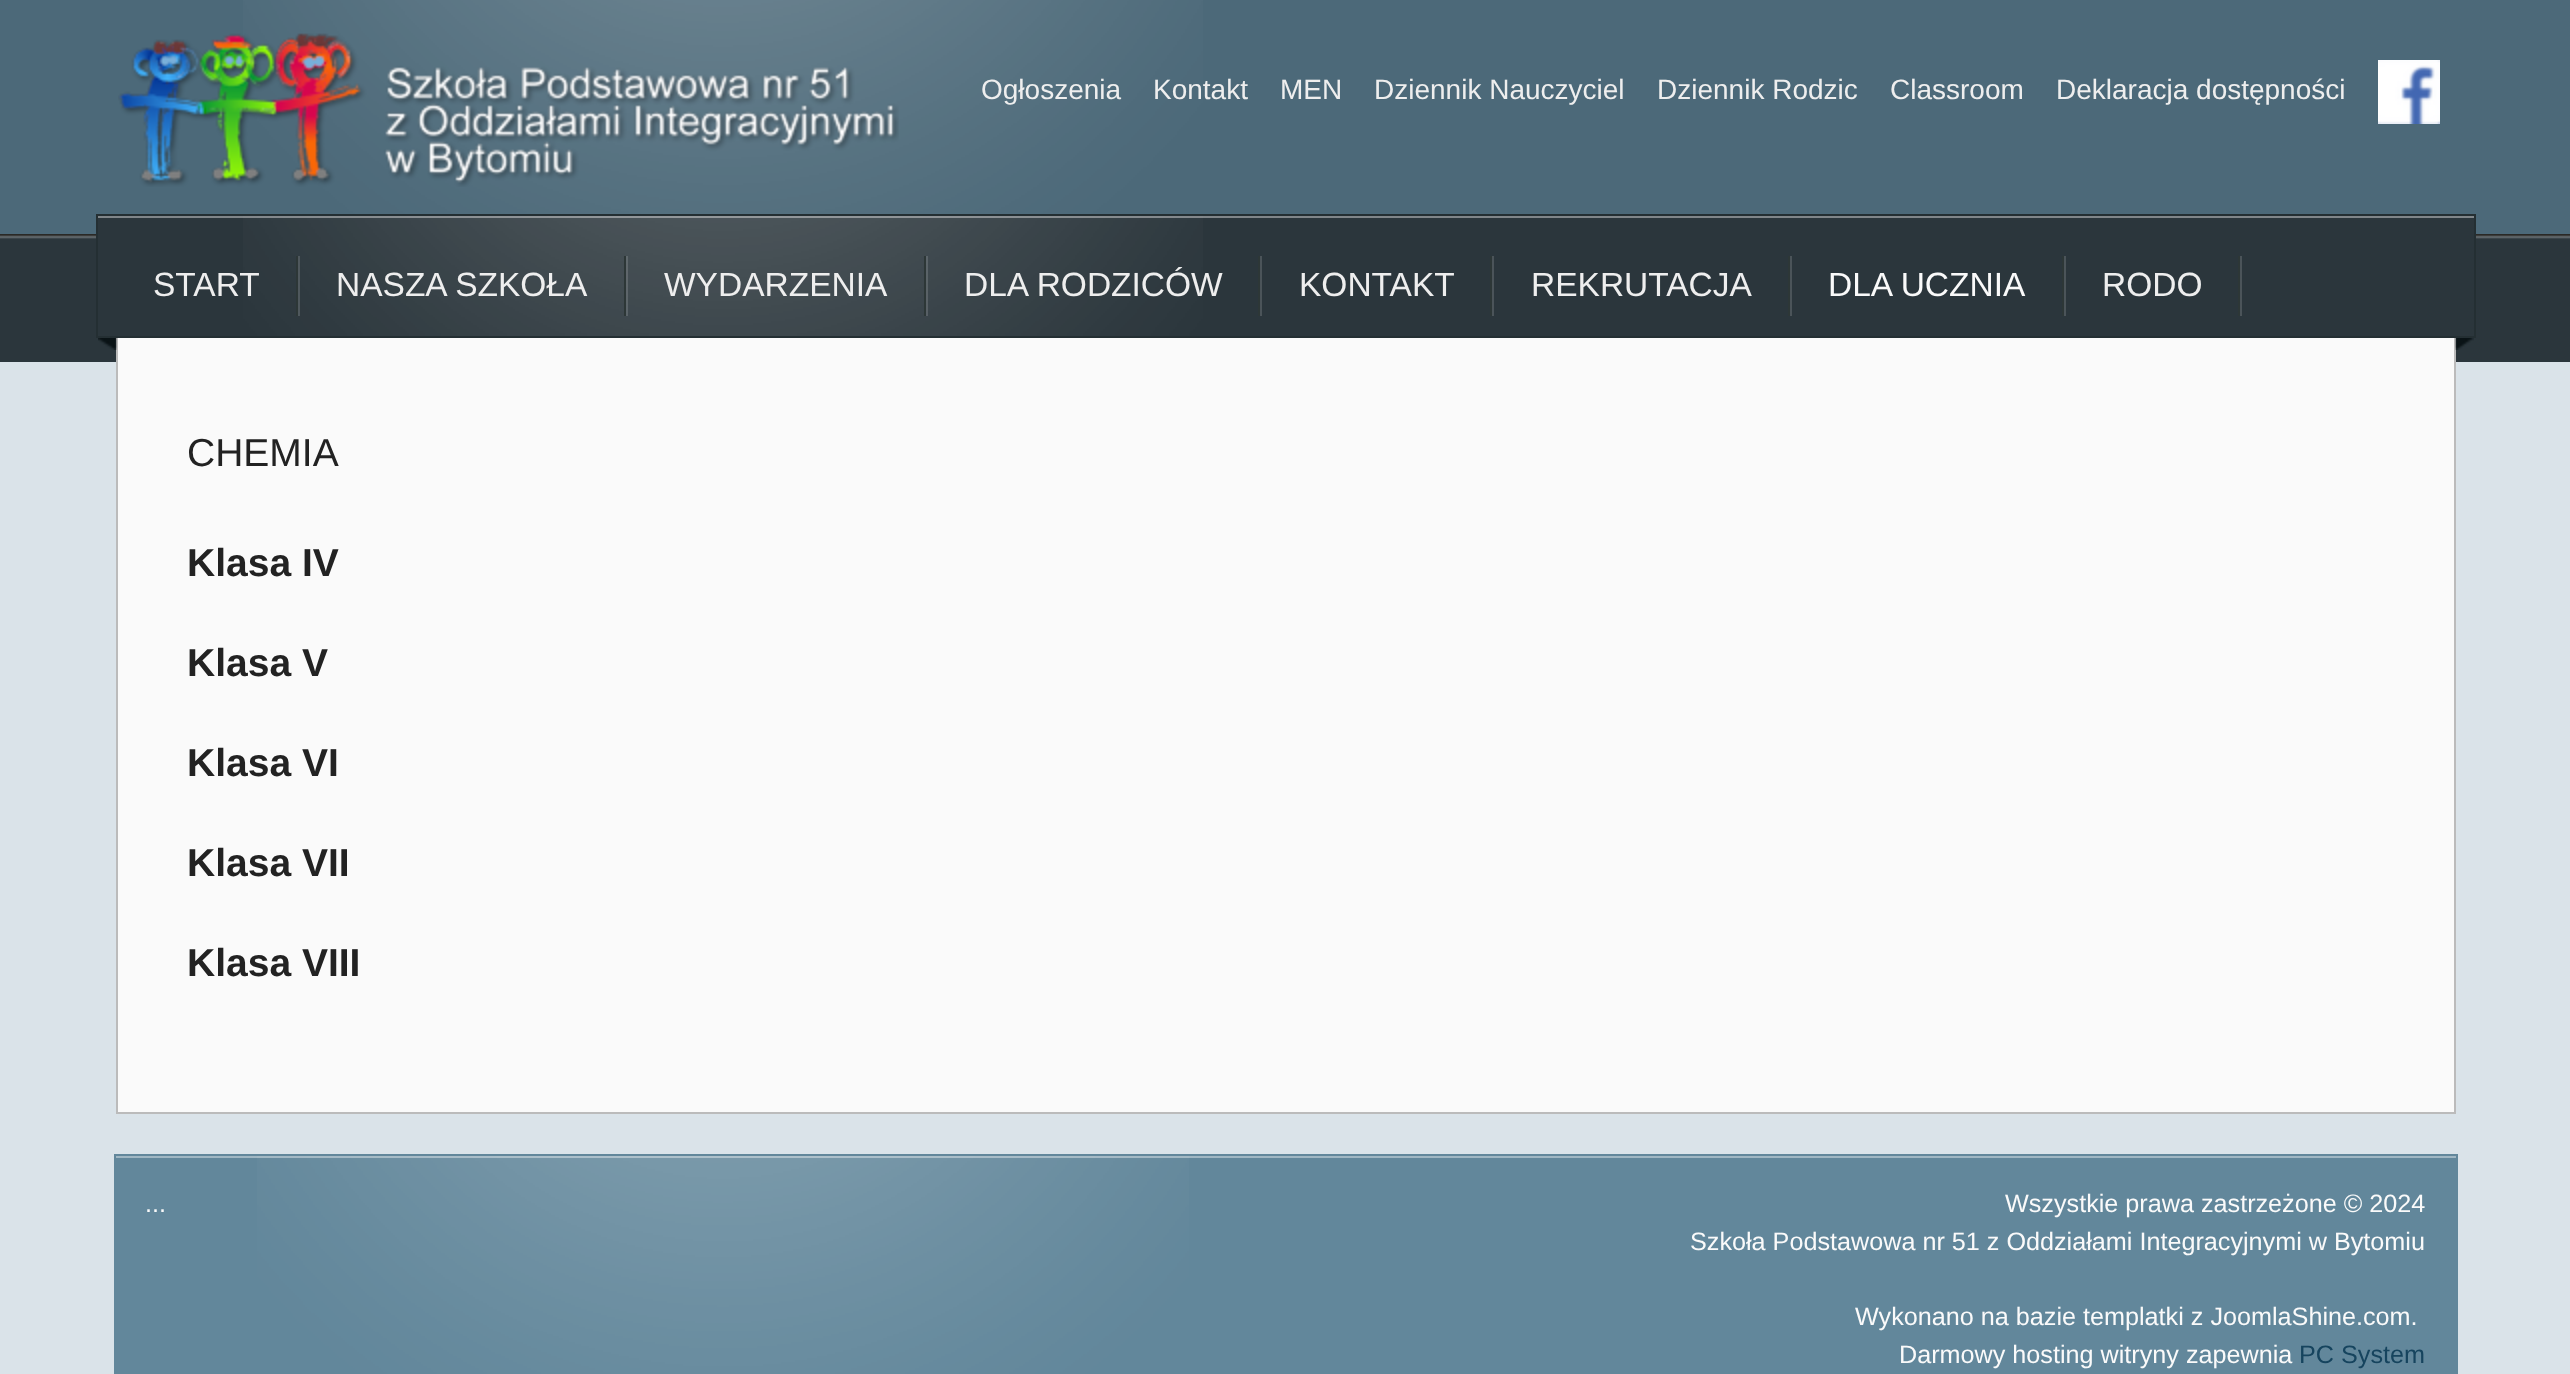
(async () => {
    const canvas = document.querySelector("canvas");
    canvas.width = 2570;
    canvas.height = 1374;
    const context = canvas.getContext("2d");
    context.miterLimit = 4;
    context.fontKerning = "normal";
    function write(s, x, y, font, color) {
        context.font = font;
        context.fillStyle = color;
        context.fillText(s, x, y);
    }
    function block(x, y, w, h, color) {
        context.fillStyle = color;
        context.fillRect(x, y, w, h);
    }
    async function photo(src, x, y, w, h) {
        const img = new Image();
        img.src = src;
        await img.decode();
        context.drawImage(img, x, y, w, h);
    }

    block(0, 0, 2570, 1374, "rgb(218, 227, 233)");
    block(0, 0, 2570, 234, "rgb(76, 105, 121)");
    await photo("media/1.png", 243, 0, 960, 214);
    await photo("media/2.png", 118, 33, 781, 154);
    write("Ogłoszenia", 981, 99, "28px Liberation Sans", "rgb(238, 238, 238)");
    write("Kontakt", 1153, 99, "28px Liberation Sans", "rgb(238, 238, 238)");
    write("MEN", 1280, 99, "28px Liberation Sans", "rgb(238, 238, 238)");
    write("Dziennik Nauczyciel", 1374, 99, "28px Liberation Sans", "rgb(238, 238, 238)");
    write("Dziennik Rodzic", 1657, 99, "28px Liberation Sans", "rgb(238, 238, 238)");
    write("Classroom", 1890, 99, "28px Liberation Sans", "rgb(238, 238, 238)");
    write("Deklaracja dostępności", 2056, 99, "28px Liberation Sans", "rgb(238, 238, 238)");
    await photo("media/3.png", 2378, 60, 62, 64);
    await photo("media/4.png", 0, 234, 2570, 128);
    block(98, 218, 2376, 21, "rgb(43, 54, 60)");
    block(96, 216, 2380, 2, "rgb(128, 134, 138)");
    block(2454, 336, 2, 778, "rgb(187, 187, 187)");
    block(116, 1112, 2340, 2, "rgb(187, 187, 187)");
    block(116, 336, 2, 778, "rgb(187, 187, 187)");
    context.strokeStyle = "rgb(36, 47, 51)";
    context.lineWidth = 2;
    context.strokeRect(97, 215, 2378, 122);
    await photo("media/5.png", 243, 216, 960, 120);
    block(298, 256, 2, 60, "rgb(79, 88, 93)");
    block(296, 256, 2, 60, "rgb(45, 55, 55)");
    write("START", 153, 296, "33.5px Liberation Sans", "rgb(238, 238, 238)");
    block(626, 256, 2, 60, "rgba(255, 255, 255, 0.15)");
    block(624, 256, 2, 60, "rgb(45, 55, 55)");
    write("NASZA SZKOŁA", 336, 296, "33.5px Liberation Sans", "rgb(238, 238, 238)");
    block(926, 256, 2, 60, "rgba(255, 255, 255, 0.15)");
    block(924, 256, 2, 60, "rgb(45, 55, 55)");
    write("WYDARZENIA", 664, 296, "33.5px Liberation Sans", "rgb(238, 238, 238)");
    block(1260, 256, 2, 60, "rgb(75, 84, 89)");
    block(1258, 256, 2, 60, "rgb(45, 55, 55)");
    write("DLA RODZICÓW", 964, 296, "33.5px Liberation Sans", "rgb(238, 238, 238)");
    block(1492, 256, 2, 60, "rgb(75, 84, 89)");
    block(1490, 256, 2, 60, "rgb(45, 55, 55)");
    write("KONTAKT", 1299, 296, "33.5px Liberation Sans", "rgb(238, 238, 238)");
    block(1790, 256, 2, 60, "rgb(75, 84, 89)");
    block(1788, 256, 2, 60, "rgb(45, 55, 55)");
    write("REKRUTACJA", 1531, 296, "33.5px Liberation Sans", "rgb(238, 238, 238)");
    block(2064, 256, 2, 60, "rgb(75, 84, 89)");
    block(2062, 256, 2, 60, "rgb(45, 55, 55)");
    write("DLA UCZNIA", 1828, 296, "33.5px Liberation Sans", "rgb(250, 250, 250)");
    block(2240, 256, 2, 60, "rgb(75, 84, 89)");
    block(2238, 256, 2, 60, "rgb(45, 55, 55)");
    write("RODO", 2102, 296, "33.5px Liberation Sans", "rgb(238, 238, 238)");
    await photo("media/6.png", 98, 338, 19, 12);
    await photo("media/7.png", 2455, 338, 19, 12);
    block(118, 338, 2336, 774, "rgb(250, 250, 250)");
    write("CHEMIA", 187, 466, "39px Liberation Sans", "rgb(34, 34, 34)");
    write("Klasa IV", 187, 576, "bold 39px Liberation Sans", "rgb(34, 34, 34)");
    write("Klasa V", 187, 676, "bold 39px Liberation Sans", "rgb(34, 34, 34)");
    write("Klasa VI", 187, 776, "bold 39px Liberation Sans", "rgb(34, 34, 34)");
    write("Klasa VII", 187, 876, "bold 39px Liberation Sans", "rgb(34, 34, 34)");
    write("Klasa VIII", 187, 976, "bold 39px Liberation Sans", "rgb(34, 34, 34)");
    block(114, 1154, 2344, 220, "rgb(98, 135, 155)");
    await photo("media/8.png", 257, 1156, 932, 218);
    block(116, 1156, 2340, 2, "rgba(255, 255, 255, 0.4)");
    write("...", 145, 1212, "25.2px Liberation Sans", "rgb(250, 250, 250)");
    write("Wszystkie prawa zastrzeżone © 2024", 2005, 1212, "25.2px Liberation Sans", "rgb(250, 250, 250)");
    write("Szkoła Podstawowa nr 51 z Oddziałami Integracyjnymi w Bytomiu", 1690, 1250, "25.2px Liberation Sans", "rgb(250, 250, 250)");
    write("Wykonano na bazie templatki z JoomlaShine.com.", 1855, 1325, "25.2px Liberation Sans", "rgb(250, 250, 250)");
    write("Darmowy hosting witryny zapewnia", 1899, 1363, "25.2px Liberation Sans", "rgb(250, 250, 250)");
    write("PC System", 2299, 1363, "25.2px Liberation Sans", "rgb(22, 68, 94)");
})();
